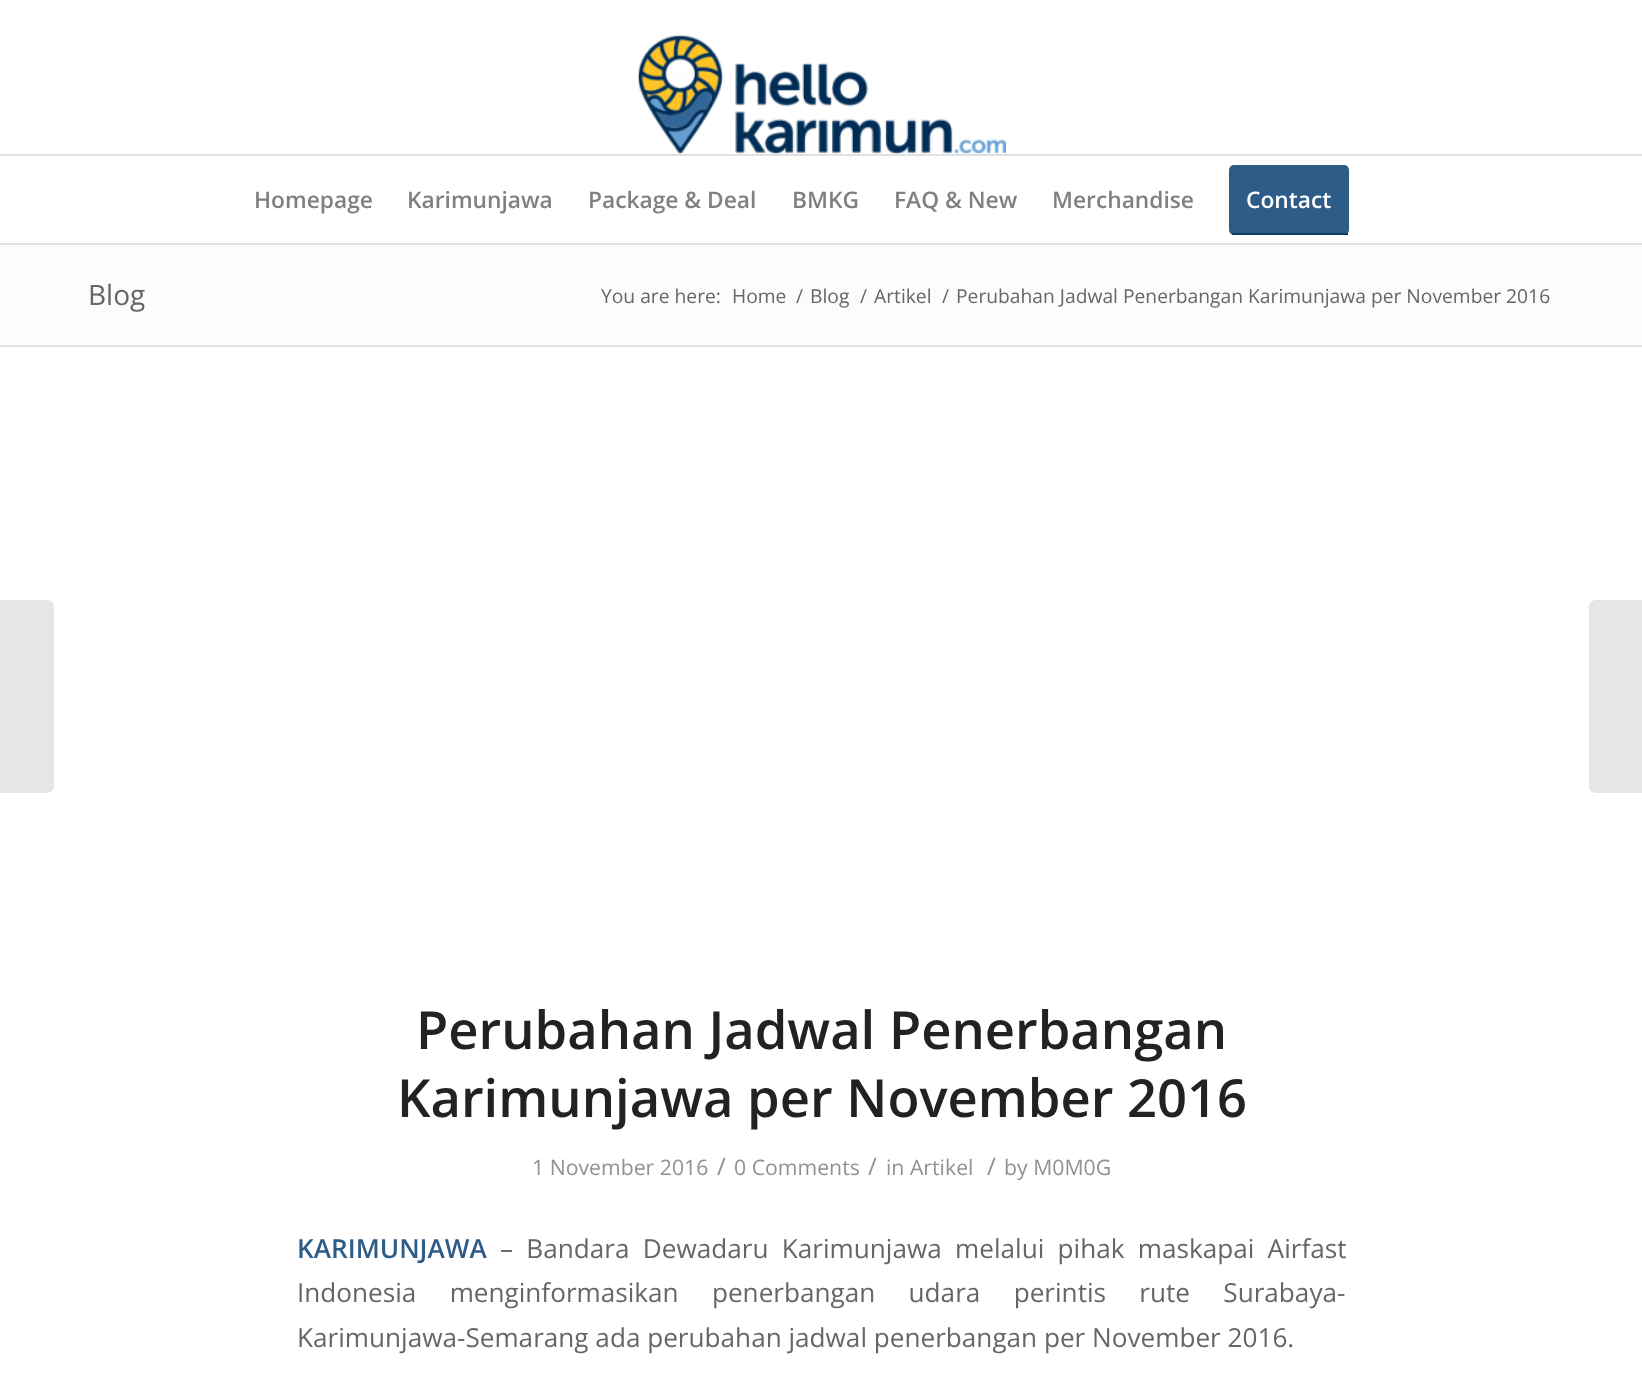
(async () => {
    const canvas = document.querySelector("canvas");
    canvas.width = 1642;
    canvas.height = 1392;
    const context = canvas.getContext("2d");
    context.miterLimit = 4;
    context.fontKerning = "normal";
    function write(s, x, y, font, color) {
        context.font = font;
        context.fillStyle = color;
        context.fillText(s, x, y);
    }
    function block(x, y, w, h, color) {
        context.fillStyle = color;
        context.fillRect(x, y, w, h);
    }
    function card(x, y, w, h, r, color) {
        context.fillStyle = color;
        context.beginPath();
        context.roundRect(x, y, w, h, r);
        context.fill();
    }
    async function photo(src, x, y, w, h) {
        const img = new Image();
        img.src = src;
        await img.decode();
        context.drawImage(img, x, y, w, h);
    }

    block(0, 0, 1642, 1392, "rgb(255, 255, 255)");
    block(0, 243, 1642, 2, "rgb(225, 225, 225)");
    await photo("media/1.png", 638, 35, 368, 119);
    block(0, 154, 1642, 2, "rgb(225, 225, 225)");
    write("Homepage", 254, 208, "600 22.75px Open Sans", "rgb(128, 128, 128)");
    write("Karimunjawa", 407, 208, "600 22.75px Open Sans", "rgb(128, 128, 128)");
    write("Package & Deal", 588, 208, "600 22.75px Open Sans", "rgb(128, 128, 128)");
    write("BMKG", 792, 208, "600 22.75px Open Sans", "rgb(128, 128, 128)");
    write("FAQ & New", 894, 208, "600 22.75px Open Sans", "rgb(128, 128, 128)");
    write("Merchandise", 1052, 208, "600 22.75px Open Sans", "rgb(128, 128, 128)");
    card(1229, 165, 120, 70, 5, "rgb(45, 92, 136)");
    write("Contact", 1246, 208, "600 22.75px Open Sans", "rgb(255, 255, 255)");
    block(1232, 233, 116, 2, "rgb(11, 58, 102)");
    context.fillStyle = "rgb(230, 230, 230)";
    context.beginPath();
    context.roundRect(0, 600, 54, 193, [0, 7, 7, 0]);
    context.fill();
    block(0, 245, 1642, 100, "rgb(252, 252, 252)");
    write("Blog", 88, 305, "28px Open Sans", "rgb(102, 102, 102)");
    write("You are here:", 601, 303, "19.25px Open Sans", "rgb(102, 102, 102)");
    write("Home", 732, 303, "19.25px Open Sans", "rgb(102, 102, 102)");
    write("/", 796, 303, "19.25px Open Sans", "rgb(102, 102, 102)");
    write("Blog", 810, 303, "19.25px Open Sans", "rgb(102, 102, 102)");
    write("/", 860, 303, "19.25px Open Sans", "rgb(102, 102, 102)");
    write("Artikel", 874, 303, "19.25px Open Sans", "rgb(102, 102, 102)");
    write("/", 942, 303, "19.25px Open Sans", "rgb(102, 102, 102)");
    write("Perubahan Jadwal Penerbangan Karimunjawa per November 2016", 956, 303, "19.25px Open Sans", "rgb(102, 102, 102)");
    block(0, 345, 1642, 2, "rgb(225, 225, 225)");
    write("Perubahan Jadwal Penerbangan", 416, 1049, "600 52.5px Open Sans", "rgb(34, 34, 34)");
    write("Karimunjawa per November 2016", 397, 1117, "600 52.5px Open Sans", "rgb(34, 34, 34)");
    write("1 November 2016", 532, 1175, "21.25px Open Sans", "rgb(145, 145, 145)");
    write("/", 717, 1175, "24px Open Sans", "rgb(145, 145, 145)");
    write("0 Comments", 734, 1175, "21.25px Open Sans", "rgb(145, 145, 145)");
    write("/", 868, 1175, "24px Open Sans", "rgb(145, 145, 145)");
    write("in Artikel", 886, 1175, "21.25px Open Sans", "rgb(145, 145, 145)");
    write("/", 987, 1175, "24px Open Sans", "rgb(145, 145, 145)");
    write("by M0M0G", 1004, 1175, "21.25px Open Sans", "rgb(145, 145, 145)");
    write("KARIMUNJAWA", 297, 1258, "600 26.15px Open Sans", "rgb(45, 92, 136)");
    context.wordSpacing = "6.5px";
    write("– Bandara Dewadaru Karimunjawa melalui pihak maskapai Airfast", 500, 1258, "26.15px Open Sans", "rgb(102, 102, 102)");
    context.wordSpacing = "26.5px";
    write("Indonesia menginformasikan penerbangan udara perintis rute Surabaya-", 297, 1302, "26.15px Open Sans", "rgb(102, 102, 102)");
    context.wordSpacing = "0px";
    write("Karimunjawa-Semarang ada perubahan jadwal penerbangan per November 2016.", 297, 1347, "26.15px Open Sans", "rgb(102, 102, 102)");
    context.fillStyle = "rgb(230, 230, 230)";
    context.beginPath();
    context.moveTo(1596, 600);
    context.lineTo(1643, 600);
    context.lineTo(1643, 793);
    context.lineTo(1596, 793);
    context.bezierCurveTo(1592, 793, 1589, 790, 1589, 786);
    context.lineTo(1589, 607);
    context.bezierCurveTo(1589, 603, 1592, 600, 1596, 600);
    context.closePath();
    context.fill();
})();
